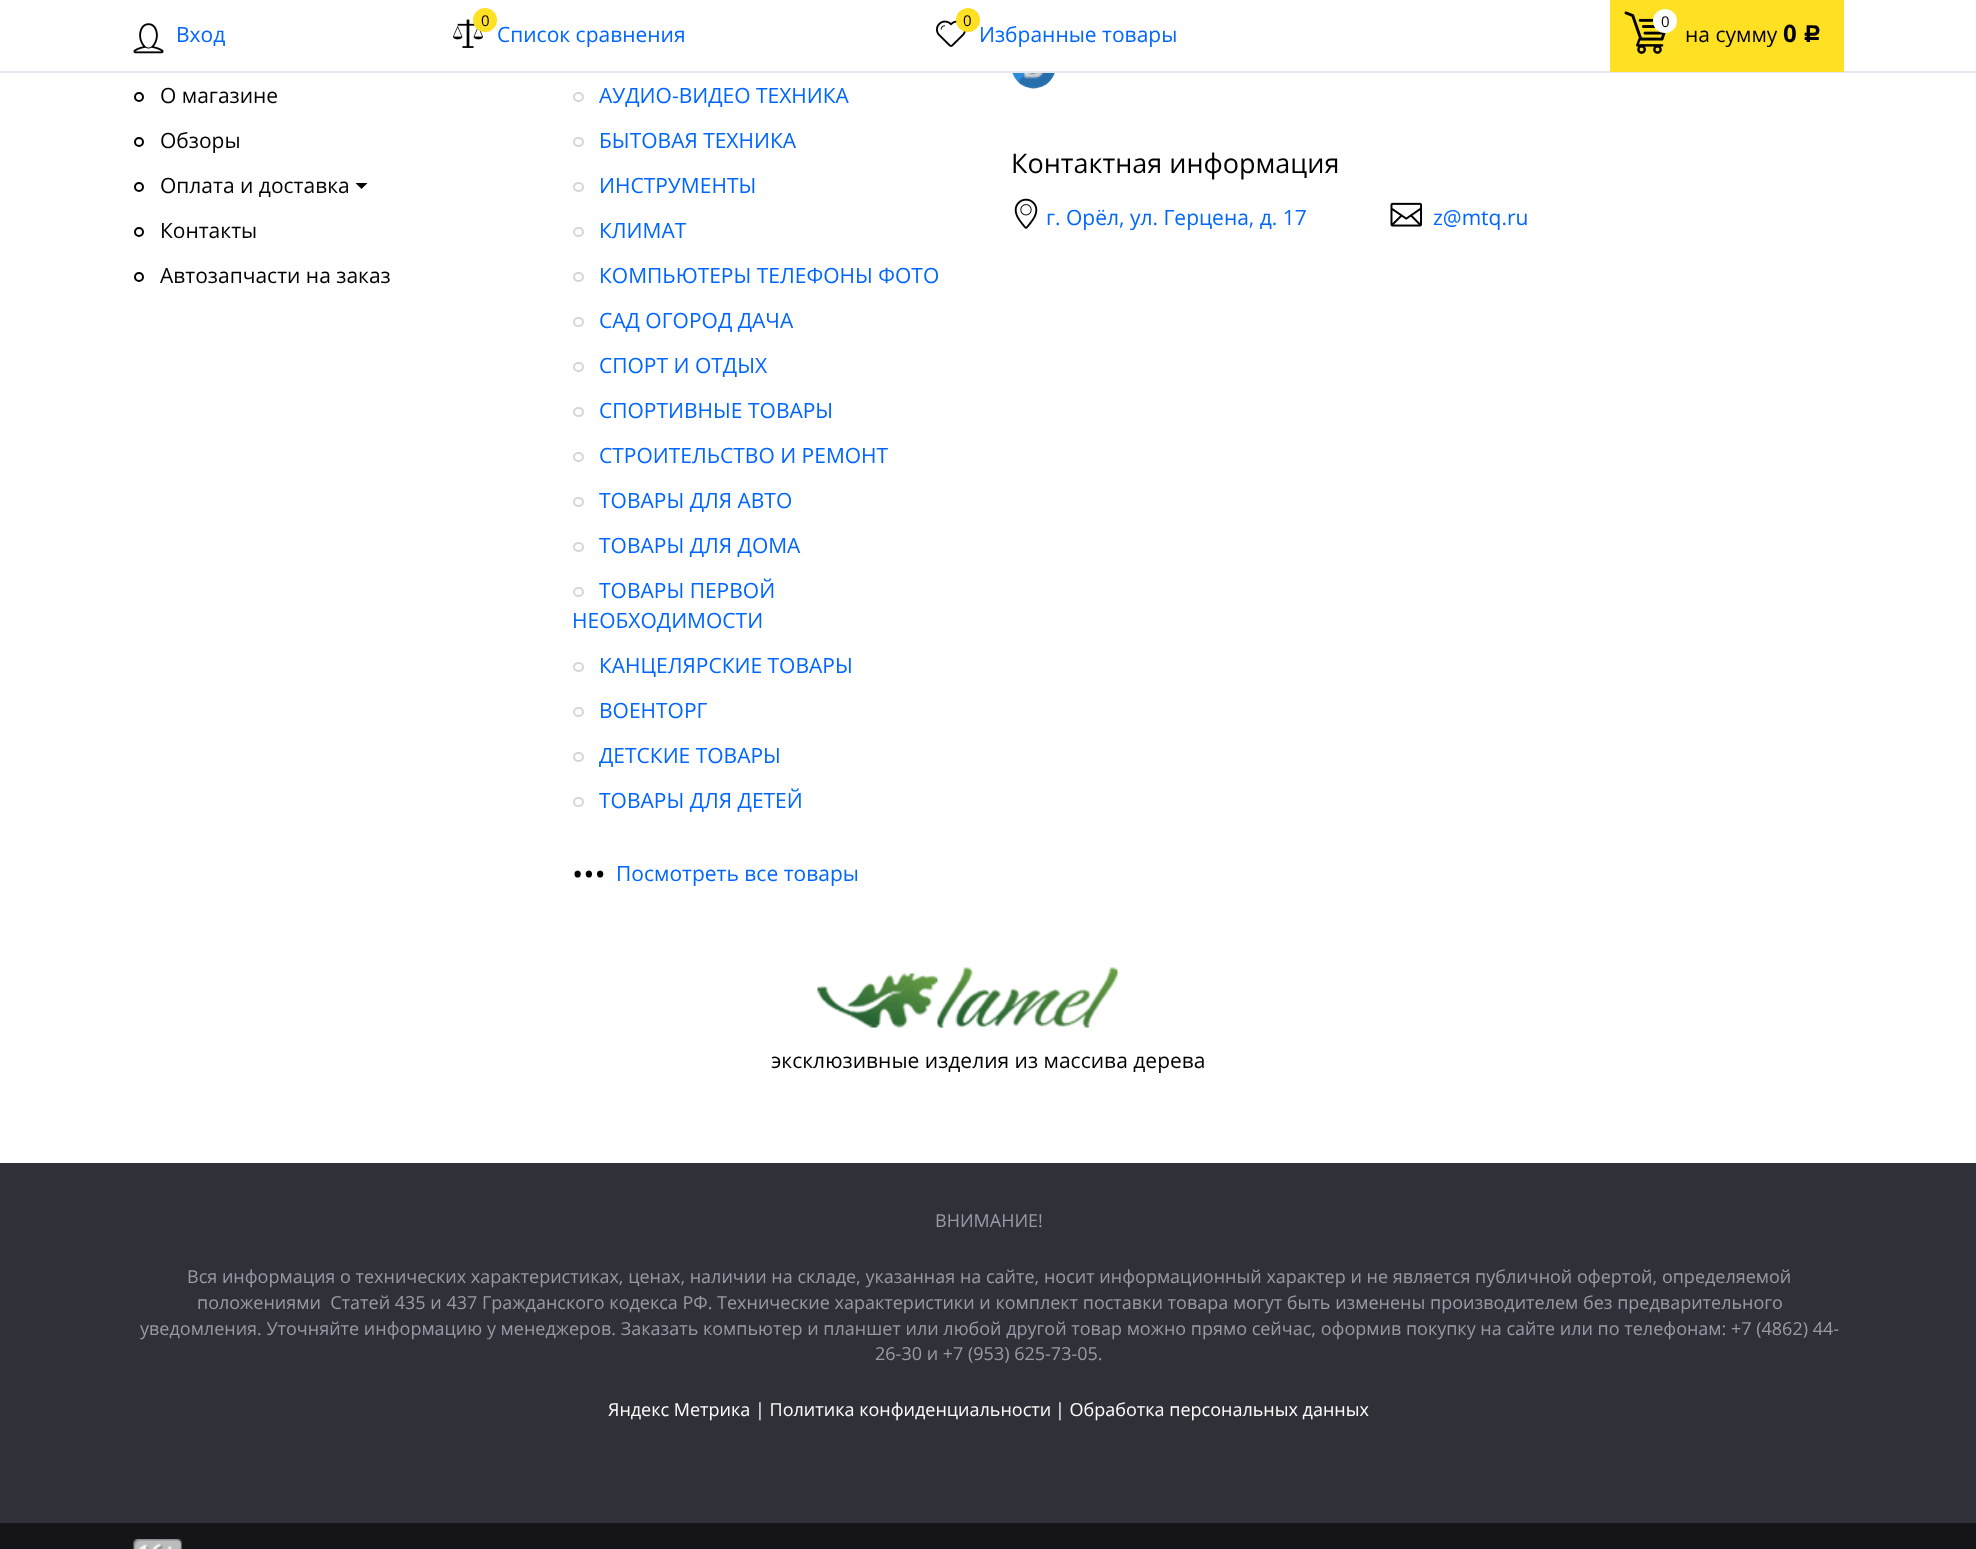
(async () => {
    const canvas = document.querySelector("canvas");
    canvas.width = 1976;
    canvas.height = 1549;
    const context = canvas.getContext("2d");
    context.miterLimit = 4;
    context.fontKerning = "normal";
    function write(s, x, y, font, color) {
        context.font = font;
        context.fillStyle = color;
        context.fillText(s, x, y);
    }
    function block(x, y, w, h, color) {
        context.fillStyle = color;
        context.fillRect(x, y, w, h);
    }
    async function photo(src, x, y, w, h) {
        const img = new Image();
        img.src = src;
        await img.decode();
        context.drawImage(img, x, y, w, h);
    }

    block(0, 0, 1976, 1549, "rgb(255, 255, 255)");
    await photo("media/1.png", 133, 23, 31, 31);
    write("Вход", 176, 42, "21px Open Sans", "rgb(0, 102, 255)");
    await photo("media/2.png", 453, 19, 30, 29);
    context.fillStyle = "rgb(255, 224, 35)";
    context.beginPath();
    context.arc(485, 20, 12, 0, Math.PI * 2);
    context.fill();
    write("0", 481, 26, "15px Open Sans", "rgb(0, 0, 0)");
    write("Список сравнения", 497, 42, "21px Open Sans", "rgb(0, 102, 255)");
    await photo("media/3.png", 936, 20, 30, 27);
    context.fillStyle = "rgb(255, 224, 35)";
    context.beginPath();
    context.arc(968, 20, 12, 0, Math.PI * 2);
    context.fill();
    write("0", 963, 26, "15px Open Sans", "rgb(0, 0, 0)");
    write("Избранные товары", 979, 42, "21px Open Sans", "rgb(0, 102, 255)");
    block(0, 71, 1976, 2, "rgb(229, 232, 240)");
    block(1610, 0, 234, 72, "rgb(255, 224, 35)");
    await photo("media/4.png", 1624, 11, 42, 43);
    context.fillStyle = "rgb(255, 255, 255)";
    context.beginPath();
    context.arc(1665, 21, 12, 0, Math.PI * 2);
    context.fill();
    write("0", 1661, 27, "15px Open Sans", "rgb(0, 0, 0)");
    write("на сумму", 1685, 42, "21px Open Sans", "rgb(0, 0, 0)");
    write("0", 1783, 42, "bold 24px Open Sans", "rgb(0, 0, 0)");
    write("Р", 1803, 42, "bold 24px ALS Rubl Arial", "rgb(0, 0, 0)");
    context.beginPath();
    context.arc(139, 97, 4, 0, Math.PI * 2);
    context.strokeStyle = "rgb(0, 0, 0)";
    context.lineWidth = 2;
    context.stroke();
    write("О магазине", 160, 103, "21px Open Sans", "rgb(0, 0, 0)");
    context.beginPath();
    context.arc(139, 142, 4, 0, Math.PI * 2);
    context.stroke();
    write("Обзоры", 160, 148, "21px Open Sans", "rgb(0, 0, 0)");
    context.beginPath();
    context.arc(139, 187, 4, 0, Math.PI * 2);
    context.stroke();
    write("Оплата и доставка", 160, 193, "21px Open Sans", "rgb(0, 0, 0)");
    context.beginPath();
    context.moveTo(355.5, 183);
    context.lineTo(367.5, 183);
    context.lineTo(361.5, 189);
    context.closePath();
    context.fill();
    context.beginPath();
    context.arc(139, 232, 4, 0, Math.PI * 2);
    context.stroke();
    write("Контакты", 160, 238, "21px Open Sans", "rgb(0, 0, 0)");
    context.beginPath();
    context.arc(139, 277, 4, 0, Math.PI * 2);
    context.stroke();
    write("Автозапчасти на заказ", 160, 283, "21px Open Sans", "rgb(0, 0, 0)");
    context.beginPath();
    context.roundRect(574, 93, 9, 8, 4);
    context.strokeStyle = "rgb(214, 214, 214)";
    context.stroke();
    write("АУДИО-ВИДЕО ТЕХНИКА", 599, 103, "21px Open Sans", "rgb(0, 102, 255)");
    context.beginPath();
    context.roundRect(574, 138, 9, 8, 4);
    context.stroke();
    write("БЫТОВАЯ ТЕХНИКА", 599, 148, "21px Open Sans", "rgb(0, 102, 255)");
    context.beginPath();
    context.roundRect(574, 183, 9, 8, 4);
    context.stroke();
    write("ИНСТРУМЕНТЫ", 599, 193, "21px Open Sans", "rgb(0, 102, 255)");
    context.beginPath();
    context.roundRect(574, 228, 9, 8, 4);
    context.stroke();
    write("КЛИМАТ", 599, 238, "21px Open Sans", "rgb(0, 102, 255)");
    context.beginPath();
    context.roundRect(574, 273, 9, 8, 4);
    context.stroke();
    write("КОМПЬЮТЕРЫ ТЕЛЕФОНЫ ФОТО", 599, 283, "21px Open Sans", "rgb(0, 102, 255)");
    context.beginPath();
    context.roundRect(574, 318, 9, 8, 4);
    context.stroke();
    write("САД ОГОРОД ДАЧА", 599, 328, "21px Open Sans", "rgb(0, 102, 255)");
    context.beginPath();
    context.roundRect(574, 363, 9, 8, 4);
    context.stroke();
    write("СПОРТ И ОТДЫХ", 599, 373, "21px Open Sans", "rgb(0, 102, 255)");
    context.beginPath();
    context.roundRect(574, 408, 9, 8, 4);
    context.stroke();
    write("СПОРТИВНЫЕ ТОВАРЫ", 599, 418, "21px Open Sans", "rgb(0, 102, 255)");
    context.beginPath();
    context.roundRect(574, 453, 9, 8, 4);
    context.stroke();
    write("СТРОИТЕЛЬСТВО И РЕМОНТ", 599, 463, "21px Open Sans", "rgb(0, 102, 255)");
    context.beginPath();
    context.roundRect(574, 498, 9, 8, 4);
    context.stroke();
    write("ТОВАРЫ ДЛЯ АВТО", 599, 508, "21px Open Sans", "rgb(0, 102, 255)");
    context.beginPath();
    context.roundRect(574, 543, 9, 8, 4);
    context.stroke();
    write("ТОВАРЫ ДЛЯ ДОМА", 599, 553, "21px Open Sans", "rgb(0, 102, 255)");
    context.beginPath();
    context.roundRect(574, 588, 9, 8, 4);
    context.stroke();
    write("ТОВАРЫ ПЕРВОЙ", 599, 598, "21px Open Sans", "rgb(0, 102, 255)");
    write("НЕОБХОДИМОСТИ", 572, 628, "21px Open Sans", "rgb(0, 102, 255)");
    context.beginPath();
    context.roundRect(574, 663, 9, 8, 4);
    context.stroke();
    write("КАНЦЕЛЯРСКИЕ ТОВАРЫ", 599, 673, "21px Open Sans", "rgb(0, 102, 255)");
    context.beginPath();
    context.roundRect(574, 708, 9, 8, 4);
    context.stroke();
    write("ВОЕНТОРГ", 599, 718, "21px Open Sans", "rgb(0, 102, 255)");
    context.beginPath();
    context.roundRect(574, 753, 9, 8, 4);
    context.stroke();
    write("ДЕТСКИЕ ТОВАРЫ", 599, 763, "21px Open Sans", "rgb(0, 102, 255)");
    context.beginPath();
    context.roundRect(574, 798, 9, 8, 4);
    context.stroke();
    write("ТОВАРЫ ДЛЯ ДЕТЕЙ", 599, 808, "21px Open Sans", "rgb(0, 102, 255)");
    write("•••", 572, 885, "30px Open Sans", "rgb(0, 0, 0)");
    write("Посмотреть все товары", 616, 881, "21px Open Sans", "rgb(0, 102, 255)");
    await photo("media/5.png", 1012, 73, 43, 16);
    write("Контактная информация", 1011, 173, "27px Open Sans", "rgb(0, 0, 0)");
    await photo("media/6.png", 1014, 198, 24, 31);
    write("г. Орёл, ул. Герцена, д. 17", 1046, 225, "21px Open Sans", "rgb(0, 102, 255)");
    await photo("media/7.png", 1390, 202, 32, 25);
    write("z@mtq.ru", 1433, 225, "21px Open Sans", "rgb(0, 102, 255)");
    await photo("media/8.png", 817, 967, 301, 61);
    write("эксклюзивные изделия из массива дерева", 771, 1068, "21px Open Sans", "rgb(0, 0, 0)");
    block(0, 1163, 1976, 360, "rgb(48, 49, 56)");
    write("ВНИМАНИЕ!", 935, 1227, "18px Open Sans", "rgb(153, 154, 163)");
    write("Вся информация о технических характеристиках, ценах, наличии на складе, указанная на сайте, носит информационный характер и не является публичной офертой, определяемой", 187, 1283, "18px Open Sans", "rgb(153, 154, 163)");
    write("положениями  Статей 435 и 437 Гражданского кодекса РФ. Технические характеристики и комплект поставки товара могут быть изменены производителем без предварительного", 197, 1309, "18px Open Sans", "rgb(153, 154, 163)");
    write("уведомления. Уточняйте информацию у менеджеров. Заказать компьютер и планшет или любой другой товар можно прямо сейчас, оформив покупку на сайте или по телефонам: +7 (4862) 44-", 140, 1335, "18px Open Sans", "rgb(153, 154, 163)");
    write("26-30 и +7 (953) 625-73-05.", 875, 1360, "18px Open Sans", "rgb(153, 154, 163)");
    write("Яндекс Метрика | Политика конфиденциальности", 608, 1416, "18px Open Sans", "rgb(255, 255, 255)");
    write("| Обработка персональных данных", 1055, 1416, "18px Open Sans", "rgb(255, 255, 255)");
    block(0, 1523, 1976, 26, "rgb(20, 20, 25)");
    await photo("media/9.png", 133, 1539, 49, 10);
})();
